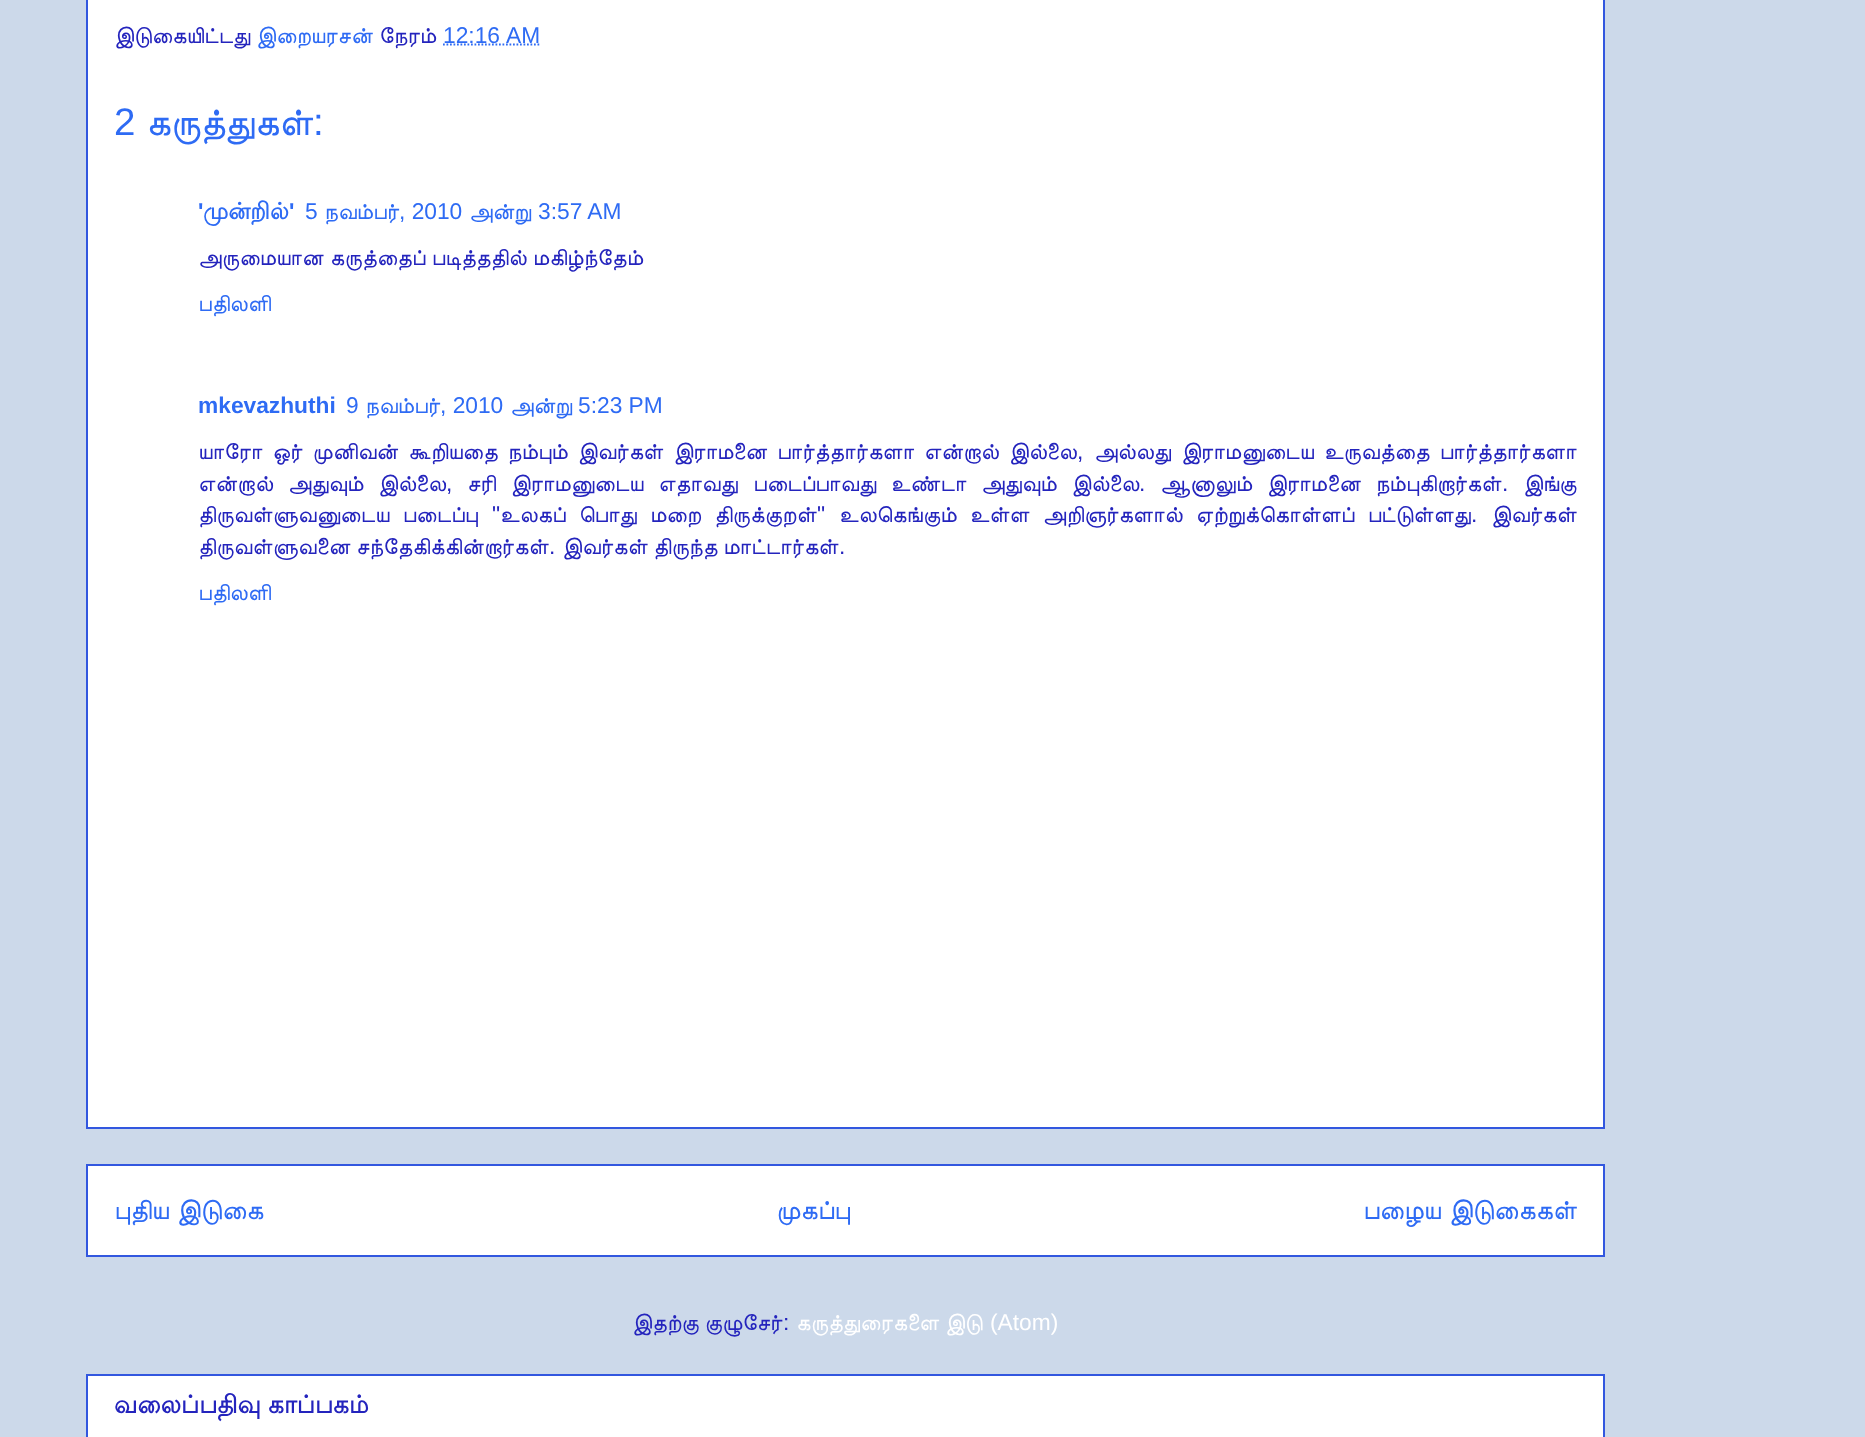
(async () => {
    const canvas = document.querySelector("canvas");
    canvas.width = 1865;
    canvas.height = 1437;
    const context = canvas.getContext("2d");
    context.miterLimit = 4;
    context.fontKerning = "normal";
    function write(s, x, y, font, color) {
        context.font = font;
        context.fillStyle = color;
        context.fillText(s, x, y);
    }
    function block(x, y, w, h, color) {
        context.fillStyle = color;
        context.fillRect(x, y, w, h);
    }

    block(0, 0, 1865, 1437, "rgb(204, 217, 234)");
    context.fillStyle = "rgb(255, 255, 255)";
    context.beginPath();
    context.rect(87, -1, 1517, 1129);
    context.fill();
    context.strokeStyle = "rgb(50, 87, 223)";
    context.lineWidth = 2;
    context.stroke();
    write("இடுகையிட்டது", 114, 43, "22.75px FreeSans", "rgb(36, 36, 189)");
    write("இறையரசன்", 256, 43, "22.75px FreeSans", "rgb(46, 107, 244)");
    write("நேரம்", 379, 43, "22.75px FreeSans", "rgb(36, 36, 189)");
    context.beginPath();
    context.moveTo(443, 44.5);
    context.lineTo(540, 44.5);
    context.strokeStyle = "rgb(46, 107, 244)";
    context.lineWidth = 1.8;
    context.setLineDash([1.75, 1.75]);
    context.stroke();
    context.wordSpacing = "1px";
    write("12:16 AM", 443, 43, "22.75px Liberation Sans", "rgb(46, 107, 244)");
    context.wordSpacing = "0px";
    write("2", 114, 135, "38.5px Liberation Sans", "rgb(46, 107, 244)");
    write("கருத்துகள்", 146, 135, "38.5px FreeSans", "rgb(46, 107, 244)");
    write(":", 313, 135, "38.5px Liberation Sans", "rgb(46, 107, 244)");
    write("'", 198, 219, "bold 22.75px Liberation Sans", "rgb(46, 107, 244)");
    write("முன்றில்", 203, 219, "bold 22.75px Lohit Tamil", "rgb(46, 107, 244)");
    write("'", 289, 219, "bold 22.75px Liberation Sans", "rgb(46, 107, 244)");
    write("5", 305, 219, "22.75px Liberation Sans", "rgb(46, 107, 244)");
    write("நவம்பர்", 324, 219, "22.75px FreeSans", "rgb(46, 107, 244)");
    write(", 2010", 399, 219, "22.75px Liberation Sans", "rgb(46, 107, 244)");
    write("அன்று", 469, 219, "22.75px FreeSans", "rgb(46, 107, 244)");
    write("3:57 AM", 538, 219, "22.75px Liberation Sans", "rgb(46, 107, 244)");
    context.wordSpacing = "0.5px";
    write("அருமையான கருத்தைப் படித்ததில் மகிழ்ந்தேம்", 198, 265, "22.75px FreeSans", "rgb(36, 36, 189)");
    context.wordSpacing = "0px";
    write("பதிலளி", 198, 311, "22.75px FreeSans", "rgb(46, 107, 244)");
    write("mkevazhuthi", 198, 413, "bold 22.75px Liberation Sans", "rgb(46, 107, 244)");
    write("9", 346, 413, "22.75px Liberation Sans", "rgb(46, 107, 244)");
    write("நவம்பர்", 365, 413, "22.75px FreeSans", "rgb(46, 107, 244)");
    write(", 2010", 440, 413, "22.75px Liberation Sans", "rgb(46, 107, 244)");
    write("அன்று", 510, 413, "22.75px FreeSans", "rgb(46, 107, 244)");
    write("5:23 PM", 578, 413, "22.75px Liberation Sans", "rgb(46, 107, 244)");
    context.wordSpacing = "4.25px";
    write("யாரோ ஒர் முனிவன் கூறியதை நம்பும் இவர்கள் இராமனை பார்த்தார்களா என்றால் இல்லை", 198, 459, "22.75px FreeSans", "rgb(36, 36, 189)");
    context.wordSpacing = "0px";
    write(",", 1077, 459, "22.75px Liberation Sans", "rgb(36, 36, 189)");
    context.wordSpacing = "4.25px";
    write("அல்லது இராமனுடைய உருவத்தை பார்த்தார்களா", 1094, 459, "22.75px FreeSans", "rgb(36, 36, 189)");
    context.wordSpacing = "9px";
    write("என்றால் அதுவும் இல்லை", 198, 491, "22.75px FreeSans", "rgb(36, 36, 189)");
    context.wordSpacing = "0px";
    write(",", 446, 491, "22.75px Liberation Sans", "rgb(36, 36, 189)");
    context.wordSpacing = "9px";
    write("சரி இராமனுடைய எதாவது", 467, 491, "22.75px FreeSans", "rgb(36, 36, 189)");
    write("படைப்பாவது உண்டா அதுவும் இல்லை", 753, 491, "22.75px FreeSans", "rgb(36, 36, 189)");
    context.wordSpacing = "0px";
    write(".", 1139, 491, "22.75px Liberation Sans", "rgb(36, 36, 189)");
    context.wordSpacing = "9px";
    write("ஆனாலும் இராமனை நம்புகிறார்கள்", 1160, 491, "22.75px FreeSans", "rgb(36, 36, 189)");
    context.wordSpacing = "0px";
    write(".", 1502, 491, "22.75px Liberation Sans", "rgb(36, 36, 189)");
    write("இங்கு", 1523, 491, "22.75px FreeSans", "rgb(36, 36, 189)");
    context.wordSpacing = "7.5px";
    write("திருவள்ளுவனுடைய படைப்பு", 198, 522, "22.75px FreeSans", "rgb(36, 36, 189)");
    context.wordSpacing = "0px";
    write("\"", 492, 522, "22.75px Liberation Sans", "rgb(36, 36, 189)");
    context.wordSpacing = "7.5px";
    write("உலகப் பொது மறை திருக்குறள்", 500, 522, "22.75px FreeSans", "rgb(36, 36, 189)");
    context.wordSpacing = "0px";
    write("\"", 817, 522, "22.75px Liberation Sans", "rgb(36, 36, 189)");
    context.wordSpacing = "7.5px";
    write("உலகெங்கும் உள்ள அறிஞர்களால் ஏற்றுக்கொள்ளப் பட்டுள்ளது", 839, 522, "22.75px FreeSans", "rgb(36, 36, 189)");
    context.wordSpacing = "0px";
    write("இவர்கள்", 1491, 522, "22.75px FreeSans", "rgb(36, 36, 189)");
    write(".", 1471, 522, "22.75px Liberation Sans", "rgb(36, 36, 189)");
    write("திருவள்ளுவனை சந்தேகிக்கின்றார்கள்", 198, 554, "22.75px FreeSans", "rgb(36, 36, 189)");
    write(".", 549, 554, "22.75px Liberation Sans", "rgb(36, 36, 189)");
    write("இவர்கள் திருந்த மாட்டார்கள்", 562, 554, "22.75px FreeSans", "rgb(36, 36, 189)");
    write(".", 839, 554, "22.75px Liberation Sans", "rgb(36, 36, 189)");
    write("பதிலளி", 198, 600, "22.75px FreeSans", "rgb(46, 107, 244)");
    context.fillStyle = "rgb(255, 255, 255)";
    context.beginPath();
    context.rect(87, 1165, 1517, 91);
    context.fill();
    context.strokeStyle = "rgb(50, 87, 223)";
    context.lineWidth = 2;
    context.setLineDash([]);
    context.stroke();
    context.wordSpacing = "1px";
    write("புதிய இடுகை", 114, 1219, "27.25px FreeSans", "rgb(46, 107, 244)");
    context.wordSpacing = "0px";
    write("முகப்பு", 776, 1219, "27.25px FreeSans", "rgb(46, 107, 244)");
    context.wordSpacing = "1px";
    write("பழைய இடுகைகள்", 1363, 1219, "27.25px FreeSans", "rgb(46, 107, 244)");
    context.wordSpacing = "0px";
    write("இதற்கு குழுசேர்", 632, 1330, "22.75px FreeSans", "rgb(36, 36, 189)");
    write(":", 783, 1330, "22.75px Liberation Sans", "rgb(36, 36, 189)");
    write("கருத்துரைகளை இடு", 796, 1330, "22.75px FreeSans", "rgb(255, 255, 255)");
    write("(Atom)", 990, 1330, "22.75px Liberation Sans", "rgb(255, 255, 255)");
    context.beginPath();
    context.rect(87, 1375, 1517, 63);
    context.fill();
    context.stroke();
    write("வலைப்பதிவு காப்பகம்", 114, 1413, "bold 24.5px Lohit Tamil", "rgb(36, 36, 189)");
})();
